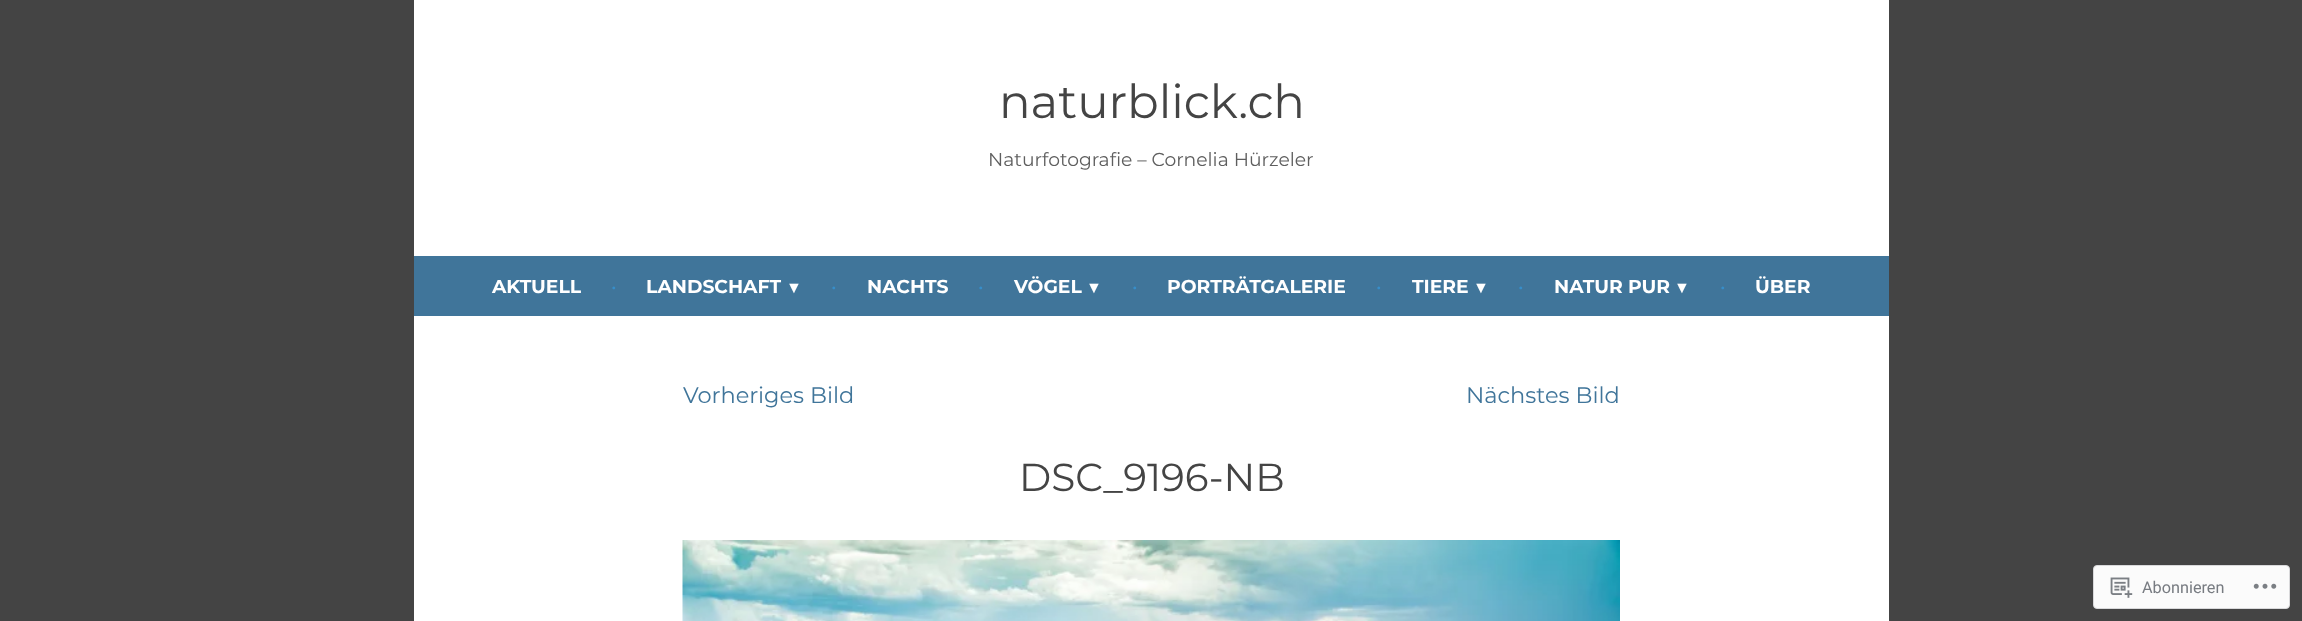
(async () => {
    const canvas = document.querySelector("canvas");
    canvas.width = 2302;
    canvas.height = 621;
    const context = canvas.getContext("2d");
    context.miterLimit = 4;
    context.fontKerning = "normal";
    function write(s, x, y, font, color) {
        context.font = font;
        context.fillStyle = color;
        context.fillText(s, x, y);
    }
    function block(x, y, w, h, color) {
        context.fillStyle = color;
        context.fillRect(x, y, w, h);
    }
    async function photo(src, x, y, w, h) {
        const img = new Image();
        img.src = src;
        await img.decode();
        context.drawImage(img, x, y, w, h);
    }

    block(0, 0, 2302, 621, "rgb(68, 68, 68)");
    block(414, 0, 1475, 621, "rgb(255, 255, 255)");
    write("naturblick.ch", 999, 118, "100 46.75px Montserrat", "rgb(68, 68, 68)");
    write("Naturfotografie – Cornelia Hürzeler", 988, 166, "100 18.75px Montserrat", "rgb(94, 94, 94)");
    block(414, 256, 1475, 60, "rgb(64, 117, 154)");
    write("AKTUELL", 492, 293, "bold 18.75px Montserrat", "rgb(255, 255, 255)");
    write("•", 611, 293, "100 18.75px Montserrat", "rgb(55, 142, 202)");
    write("LANDSCHAFT", 646, 293, "bold 18.75px Montserrat", "rgb(255, 255, 255)");
    write("▼", 786, 293, "bold 16px Liberation Serif", "rgb(255, 255, 255)");
    write("•", 831, 293, "100 18.75px Montserrat", "rgb(55, 142, 202)");
    write("NACHTS", 867, 293, "bold 18.75px Montserrat", "rgb(255, 255, 255)");
    write("•", 978, 293, "100 18.75px Montserrat", "rgb(55, 142, 202)");
    write("VÖGEL", 1014, 293, "bold 18.75px Montserrat", "rgb(255, 255, 255)");
    write("▼", 1086, 293, "bold 16px Liberation Serif", "rgb(255, 255, 255)");
    write("•", 1132, 293, "100 18.75px Montserrat", "rgb(55, 142, 202)");
    write("PORTRÄTGALERIE", 1167, 293, "bold 18.75px Montserrat", "rgb(255, 255, 255)");
    write("•", 1376, 293, "100 18.75px Montserrat", "rgb(55, 142, 202)");
    write("TIERE", 1412, 293, "bold 18.75px Montserrat", "rgb(255, 255, 255)");
    write("▼", 1473, 293, "bold 16px Liberation Serif", "rgb(255, 255, 255)");
    write("•", 1518, 293, "100 18.75px Montserrat", "rgb(55, 142, 202)");
    write("NATUR PUR", 1554, 293, "bold 18.75px Montserrat", "rgb(255, 255, 255)");
    write("▼", 1674, 293, "bold 16px Liberation Serif", "rgb(255, 255, 255)");
    write("•", 1720, 293, "100 18.75px Montserrat", "rgb(55, 142, 202)");
    write("ÜBER", 1755, 293, "bold 18.75px Montserrat", "rgb(255, 255, 255)");
    write("Vorheriges Bild", 683, 403, "100 22.5px Montserrat", "rgb(64, 117, 154)");
    write("Nächstes Bild", 1466, 403, "100 22.5px Montserrat", "rgb(64, 117, 154)");
    write("DSC_9196-NB", 1019, 491, "100 39px Montserrat", "rgb(68, 68, 68)");
    await photo("media/1.png", 682, 540, 938, 81);
    context.fillStyle = "rgb(251, 251, 251)";
    context.beginPath();
    context.roundRect(2093.5, 565.5, 196, 43, 3.5);
    context.fill();
    context.strokeStyle = "rgb(217, 217, 219)";
    context.stroke();
    await photo("media/2.png", 2110, 577, 23, 21);
    write("Abonnieren", 2142, 593, "16.25px Roboto", "rgb(119, 123, 129)");
    await photo("media/3.png", 2253, 583, 24, 6);
})();
